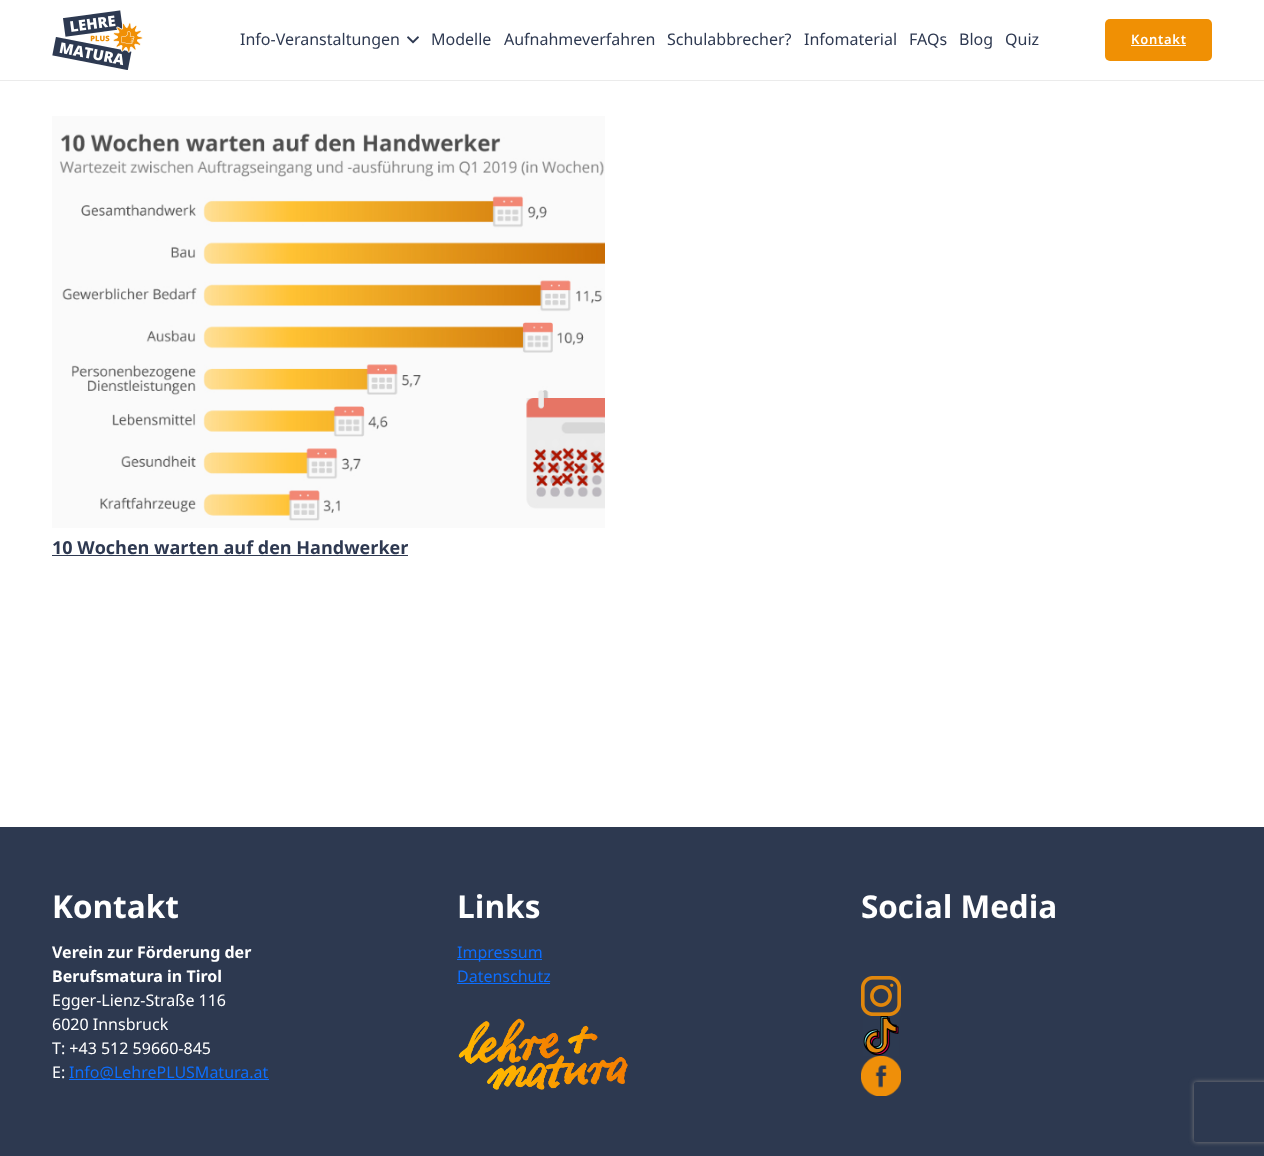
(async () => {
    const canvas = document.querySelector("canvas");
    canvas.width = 1264;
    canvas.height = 1156;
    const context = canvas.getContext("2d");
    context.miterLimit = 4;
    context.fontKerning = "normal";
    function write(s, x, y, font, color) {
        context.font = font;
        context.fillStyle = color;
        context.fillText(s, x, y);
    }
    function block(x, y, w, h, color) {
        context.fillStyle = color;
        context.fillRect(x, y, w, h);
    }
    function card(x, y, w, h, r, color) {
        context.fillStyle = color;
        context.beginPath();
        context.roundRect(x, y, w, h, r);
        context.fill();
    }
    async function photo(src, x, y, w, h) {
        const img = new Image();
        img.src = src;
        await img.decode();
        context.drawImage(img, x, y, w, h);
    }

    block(0, 0, 1264, 1156, "rgb(255, 255, 255)");
    block(0, 80, 1264, 1, "rgb(235, 235, 235)");
    await photo("media/1.png", 52, 10, 91, 60);
    write("Info-Veranstaltungen", 240, 45, "16px Noto Sans", "rgb(46, 57, 81)");
    await photo("media/2.png", 407, 36, 12, 8);
    write("Modelle", 431, 45, "16px Noto Sans", "rgb(46, 57, 81)");
    write("Aufnahmeverfahren", 504, 45, "16px Noto Sans", "rgb(46, 57, 81)");
    write("Schulabbrecher?", 667, 45, "16px Noto Sans", "rgb(46, 57, 81)");
    write("Infomaterial", 804, 45, "16px Noto Sans", "rgb(46, 57, 81)");
    write("FAQs", 909, 45, "16px Noto Sans", "rgb(46, 57, 81)");
    write("Blog", 959, 45, "16px Noto Sans", "rgb(46, 57, 81)");
    write("Quiz", 1005, 45, "16px Noto Sans", "rgb(46, 57, 81)");
    card(1105, 19, 107, 42, 5, "rgb(240, 144, 4)");
    context.letterSpacing = "0.75px";
    write("Kontakt", 1131, 44, "600 13px Noto Sans", "rgb(255, 255, 255)");
    block(1131, 45, 55, 1, "rgb(255, 255, 255)");
    await photo("media/3.png", 52, 116, 553, 412);
    context.letterSpacing = "0px";
    write("10 Wochen warten auf den Handwerker", 52, 554, "bold 18px Open Sans", "rgb(46, 57, 81)");
    block(52, 555, 356, 1, "rgb(46, 57, 81)");
    block(0, 827, 1264, 329, "rgb(45, 57, 80)");
    write("Kontakt", 52, 918, "bold 31.5px Open Sans", "rgb(255, 255, 255)");
    write("Verein zur Förderung der", 52, 958, "bold 16px Noto Sans", "rgb(255, 255, 255)");
    write("Berufsmatura in Tirol", 52, 982, "bold 16px Noto Sans", "rgb(255, 255, 255)");
    write("Egger-Lienz-Straße 116", 52, 1006, "16px Noto Sans", "rgb(255, 255, 255)");
    write("6020 Innsbruck", 52, 1030, "16px Noto Sans", "rgb(255, 255, 255)");
    write("T: +43 512 59660-845", 52, 1054, "16px Noto Sans", "rgb(255, 255, 255)");
    write("E:", 52, 1078, "16px Noto Sans", "rgb(255, 255, 255)");
    block(69, 1079, 200, 1, "rgb(13, 110, 253)");
    write("Info@LehrePLUSMatura.at", 69, 1078, "16px Noto Sans", "rgb(13, 110, 253)");
    write("Links", 457, 918, "bold 31.5px Open Sans", "rgb(255, 255, 255)");
    block(457, 959, 85, 1, "rgb(13, 110, 253)");
    write("Impressum", 457, 958, "16px Noto Sans", "rgb(13, 110, 253)");
    write("Datenschutz", 457, 982, "16px Noto Sans", "rgb(13, 110, 253)");
    block(457, 983, 93, 1, "rgb(13, 110, 253)");
    await photo("media/4.png", 458, 1018, 170, 72);
    write("Social Media", 861, 918, "bold 31.5px Open Sans", "rgb(255, 255, 255)");
    await photo("media/5.png", 861, 976, 40, 40);
    await photo("media/6.png", 863, 1016, 36, 40);
    await photo("media/7.png", 861, 1056, 40, 40);
    context.save();
    context.beginPath();
    context.moveTo(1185, 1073);
    context.lineTo(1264, 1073);
    context.lineTo(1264, 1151);
    context.lineTo(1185, 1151);
    context.closePath();
    context.moveTo(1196, 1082);
    context.lineTo(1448, 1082);
    context.bezierCurveTo(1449, 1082, 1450, 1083, 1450, 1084);
    context.lineTo(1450, 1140);
    context.bezierCurveTo(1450, 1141, 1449, 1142, 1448, 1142);
    context.lineTo(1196, 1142);
    context.bezierCurveTo(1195, 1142, 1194, 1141, 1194, 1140);
    context.lineTo(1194, 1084);
    context.bezierCurveTo(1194, 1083, 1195, 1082, 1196, 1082);
    context.closePath();
    context.clip("evenodd");
    context.fillStyle = "rgb(128, 128, 128)";
    context.filter = "blur(2.5px)";
    context.beginPath();
    context.roundRect(1194, 1082, 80, 60, 2);
    context.fill();
    context.filter = "none";
    context.restore();
})();
